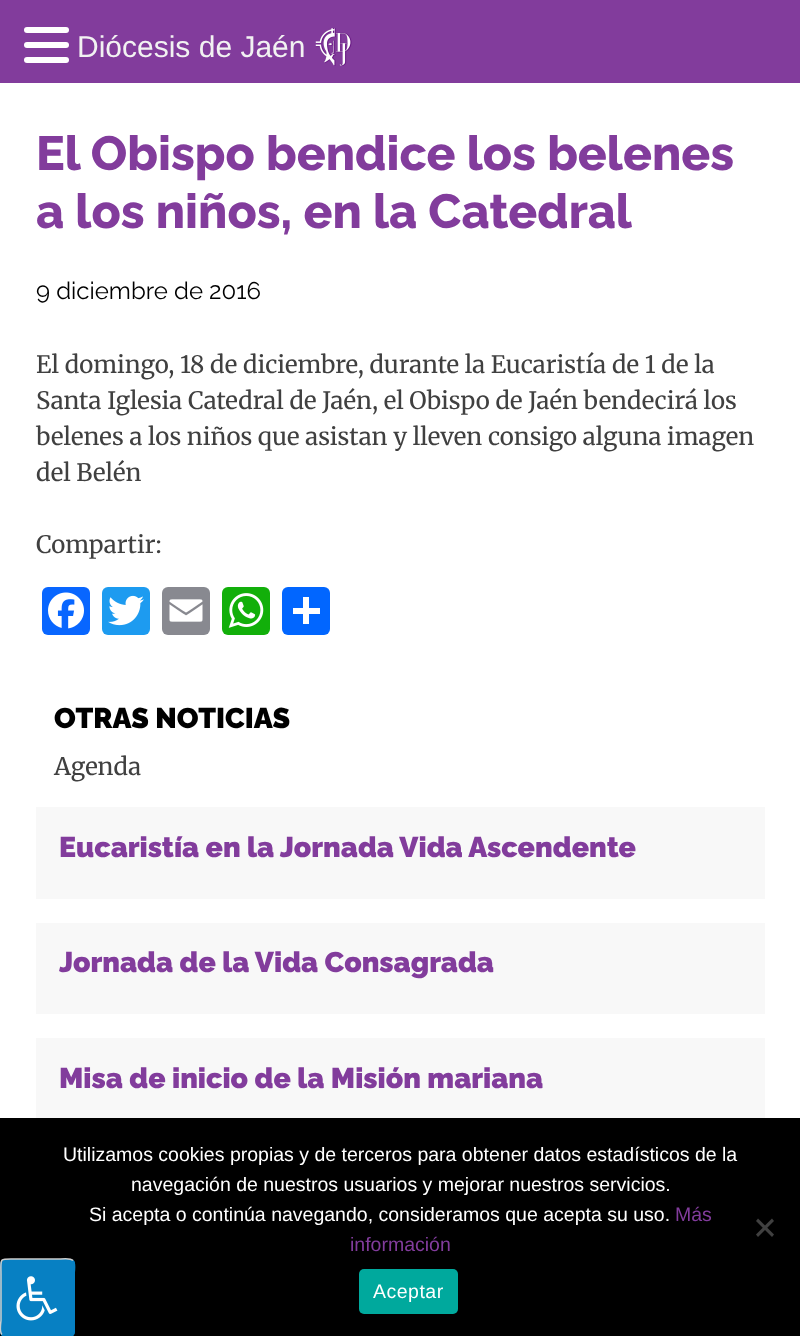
(async () => {
    const canvas = document.querySelector("canvas");
    canvas.width = 800;
    canvas.height = 1336;
    const context = canvas.getContext("2d");
    context.miterLimit = 4;
    context.fontKerning = "normal";
    function write(s, x, y, font, color) {
        context.font = font;
        context.fillStyle = color;
        context.fillText(s, x, y);
    }
    function block(x, y, w, h, color) {
        context.fillStyle = color;
        context.fillRect(x, y, w, h);
    }
    function card(x, y, w, h, r, color) {
        context.fillStyle = color;
        context.beginPath();
        context.roundRect(x, y, w, h, r);
        context.fill();
    }
    async function photo(src, x, y, w, h) {
        const img = new Image();
        img.src = src;
        await img.decode();
        context.drawImage(img, x, y, w, h);
    }

    block(0, 0, 800, 1336, "rgb(255, 255, 255)");
    block(0, 0, 800, 83, "rgb(130, 60, 156)");
    card(24, 27, 45, 6, 3, "rgb(255, 255, 255)");
    card(24, 42, 45, 6, 3, "rgb(255, 255, 255)");
    card(24, 57, 45, 6, 3, "rgb(255, 255, 255)");
    write("Diócesis de Jaén", 77, 57, "30px Liberation Sans", "rgb(242, 242, 242)");
    await photo("media/1.png", 315, 28, 37, 38);
    write("El Obispo bendice los belenes", 36, 170, "800 48px Raleway", "rgb(130, 60, 156)");
    write("a los niños, en la Catedral", 36, 228, "800 48px Raleway", "rgb(130, 60, 156)");
    write("9 diciembre de 2016", 36, 299, "24px Raleway", "rgb(0, 0, 0)");
    write("El domingo, 18 de diciembre, durante la Eucaristía de 1 de la", 36, 373, "24px Merriweather", "rgb(64, 64, 64)");
    write("Santa Iglesia Catedral de Jaén, el Obispo de Jaén bendecirá los", 36, 409, "24px Merriweather", "rgb(64, 64, 64)");
    write("belenes a los niños que asistan y lleven consigo alguna imagen", 36, 445, "24px Merriweather", "rgb(64, 64, 64)");
    write("del Belén", 36, 481, "24px Merriweather", "rgb(64, 64, 64)");
    write("Compartir:", 36, 553, "24px Merriweather", "rgb(64, 64, 64)");
    card(42, 587, 48, 48, 6, "rgb(8, 102, 255)");
    await photo("media/2.png", 48, 592, 36, 37);
    card(102, 587, 48, 48, 6, "rgb(29, 155, 240)");
    await photo("media/3.png", 108, 595, 36, 31);
    card(162, 587, 48, 48, 6, "rgb(136, 137, 144)");
    await photo("media/4.png", 169, 599, 34, 23);
    card(222, 587, 48, 48, 6, "rgb(18, 175, 10)");
    await photo("media/5.png", 228, 593, 36, 35);
    card(282, 587, 48, 48, 6, "rgb(1, 102, 255)");
    block(303, 597, 6, 27, "rgb(255, 255, 255)");
    block(293, 608, 27, 6, "rgb(255, 255, 255)");
    write("OTRAS NOTICIAS", 54, 728, "900 28.5px Raleway", "rgb(0, 0, 0)");
    write("Agenda", 54, 775, "24px Merriweather", "rgb(64, 64, 64)");
    block(36, 807, 729, 92, "rgb(248, 248, 248)");
    write("Eucaristía en la Jornada Vida Ascendente", 59, 857, "900 28.5px Raleway", "rgb(130, 60, 156)");
    block(36, 923, 729, 91, "rgb(248, 248, 248)");
    write("Jornada de la Vida Consagrada", 59, 972, "900 28.5px Raleway", "rgb(130, 60, 156)");
    block(36, 1038, 729, 80, "rgb(248, 248, 248)");
    write("Misa de inicio de la Misión mariana", 59, 1088, "900 28.5px Raleway", "rgb(130, 60, 156)");
    block(0, 1118, 800, 218, "rgb(0, 0, 0)");
    card(0, 1259, 75, 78, 5, "rgb(7, 128, 195)");
    context.beginPath();
    context.moveTo(73, 1260.5);
    context.bezierCurveTo(76, 1263, 74, 1273.5, 74, 1274.5);
    context.lineTo(74, 1320.5);
    context.bezierCurveTo(74, 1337.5, 76.5, 1336, 59.5, 1336);
    context.lineTo(15.5, 1336);
    context.bezierCurveTo(14.5, 1336, 4.5, 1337.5, 2, 1334.5);
    context.strokeStyle = "rgb(7, 128, 195)";
    context.lineWidth = 1.5;
    context.stroke();
    context.beginPath();
    context.moveTo(2, 1334.5);
    context.bezierCurveTo(-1, 1332, 1, 1321.5, 1, 1320.5);
    context.lineTo(1, 1274.5);
    context.bezierCurveTo(1, 1257.5, -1.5, 1259, 15.5, 1259);
    context.lineTo(59.5, 1259);
    context.bezierCurveTo(60.5, 1259, 70.5, 1257.5, 73, 1260.5);
    context.strokeStyle = "rgb(204, 204, 204)";
    context.stroke();
    await photo("media/6.png", 16, 1276, 42, 45);
    write("Utilizamos cookies propias y de terceros para obtener datos estadísticos de la", 63, 1161, "19.5px Liberation Sans", "rgb(255, 255, 255)");
    write("navegación de nuestros usuarios y mejorar nuestros servicios.", 131, 1191, "19.5px Liberation Sans", "rgb(255, 255, 255)");
    write("Si acepta o continúa navegando, consideramos que acepta su uso.", 89, 1221, "19.5px Liberation Sans", "rgb(255, 255, 255)");
    write("Más", 675, 1221, "19.5px Liberation Sans", "rgb(130, 60, 156)");
    write("información", 350, 1251, "19.5px Liberation Sans", "rgb(130, 60, 156)");
    context.fillStyle = "rgb(64, 64, 64)";
    context.beginPath();
    context.moveTo(772, 1218.5);
    context.lineTo(774, 1221);
    context.lineTo(758, 1237);
    context.lineTo(756, 1234.5);
    context.closePath();
    context.fill();
    context.beginPath();
    context.moveTo(756, 1221);
    context.lineTo(758, 1218.5);
    context.lineTo(774, 1234.5);
    context.lineTo(772, 1237);
    context.closePath();
    context.fill();
    card(359, 1269, 99, 45, 5, "rgb(0, 169, 157)");
    context.letterSpacing = "0.5px";
    write("Aceptar", 373, 1298, "19.5px Liberation Sans", "rgb(255, 255, 255)");
})();
